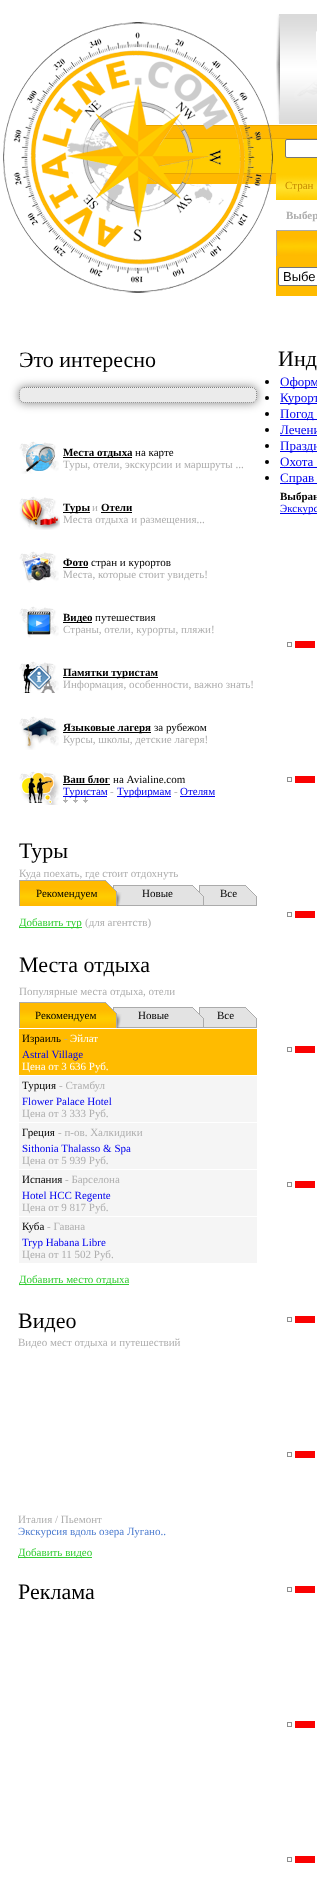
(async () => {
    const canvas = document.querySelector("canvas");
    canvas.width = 317;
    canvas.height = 1890;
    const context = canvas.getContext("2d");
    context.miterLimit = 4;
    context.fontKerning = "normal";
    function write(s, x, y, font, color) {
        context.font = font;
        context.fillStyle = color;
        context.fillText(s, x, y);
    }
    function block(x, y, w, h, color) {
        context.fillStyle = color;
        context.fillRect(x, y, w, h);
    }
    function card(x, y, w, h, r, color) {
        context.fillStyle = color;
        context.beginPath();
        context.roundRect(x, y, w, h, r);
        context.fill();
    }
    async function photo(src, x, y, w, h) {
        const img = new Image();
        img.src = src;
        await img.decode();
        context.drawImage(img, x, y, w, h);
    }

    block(0, 0, 317, 1890, "rgb(255, 255, 255)");
    await photo("media/1.png", 3, 22, 273, 271);
    await photo("media/2.png", 276, 14, 4, 110);
    await photo("media/3.png", 280, 14, 37, 110);
    await photo("media/4.png", 316, 31, 1, 29);
    await photo("media/5.png", 276, 125, 41, 75);
    context.beginPath();
    context.roundRect(285.5, 139.5, 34, 18, 1.5);
    context.fill();
    context.strokeStyle = "rgb(118, 118, 118)";
    context.stroke();
    write("Стран", 285, 189, "11px Liberation Serif", "rgb(198, 138, 0)");
    write("Выбер", 286, 219, "bold 11px Liberation Serif", "rgb(174, 174, 174)");
    await photo("media/6.png", 276, 230, 41, 26);
    block(276, 256, 41, 40, "rgb(255, 187, 0)");
    context.fillStyle = "rgb(255, 255, 255)";
    context.beginPath();
    context.roundRect(278.5, 267.5, 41, 18, 1.5);
    context.fill();
    context.stroke();
    write("Выбе", 283, 281, "13px Liberation Sans", "rgb(0, 0, 0)");
    context.fillStyle = "rgba(0, 0, 0, 0.5)";
    context.filter = "blur(5px)";
    context.beginPath();
    context.roundRect(19, 387, 238, 16, 5);
    context.fill();
    context.filter = "none";
    write("Это интересно", 19, 367, "22px Liberation Serif", "rgb(0, 0, 0)");
    card(19, 387, 238, 16, 5, "rgb(235, 235, 235)");
    context.beginPath();
    context.moveTo(24, 387.5);
    context.lineTo(252, 387.5);
    context.bezierCurveTo(254.5, 387.5, 256.5, 389.5, 256.5, 392);
    context.lineTo(256.5, 398);
    context.bezierCurveTo(256.5, 400.5, 254.5, 402.5, 252, 402.5);
    context.lineTo(24, 402.5);
    context.bezierCurveTo(21.5, 402.5, 19.5, 400.5, 19.5, 398);
    context.lineTo(19.5, 392);
    context.bezierCurveTo(19.5, 389.5, 21.5, 387.5, 24, 387.5);
    context.closePath();
    context.strokeStyle = "rgb(128, 128, 128)";
    context.setLineDash([1, 1]);
    context.stroke();
    await photo("media/7.png", 19, 441, 40, 33);
    block(63, 457, 69, 1, "rgb(0, 0, 0)");
    write("Места отдыха", 63, 456, "bold 11px Liberation Serif", "rgb(0, 0, 0)");
    write("на карте", 135, 456, "11px Liberation Serif", "rgb(0, 0, 0)");
    write("Туры, отели, экскурсии и маршруты ...", 63, 468, "11px Liberation Serif", "rgb(174, 174, 174)");
    await photo("media/8.png", 19, 496, 41, 34);
    block(63, 512, 27, 1, "rgb(0, 0, 0)");
    write("Туры", 63, 511, "bold 11px Liberation Serif", "rgb(0, 0, 0)");
    write("и", 92, 511, "11px Liberation Serif", "rgb(174, 174, 174)");
    write("Отели", 101, 511, "bold 11px Liberation Serif", "rgb(0, 0, 0)");
    block(101, 512, 31, 1, "rgb(0, 0, 0)");
    write("Места отдыха и размещения...", 63, 523, "11px Liberation Serif", "rgb(174, 174, 174)");
    await photo("media/9.png", 19, 551, 40, 32);
    write("Фото", 63, 566, "bold 11px Liberation Serif", "rgb(0, 0, 0)");
    write("стран и курортов", 91, 566, "11px Liberation Serif", "rgb(0, 0, 0)");
    block(63, 567, 25, 1, "rgb(0, 0, 0)");
    write("Места, которые стоит увидеть!", 63, 578, "11px Liberation Serif", "rgb(174, 174, 174)");
    await photo("media/10.png", 19, 606, 40, 32);
    block(63, 622, 29, 1, "rgb(0, 0, 0)");
    write("Видео", 63, 621, "bold 11px Liberation Serif", "rgb(0, 0, 0)");
    write("путешествия", 95, 621, "11px Liberation Serif", "rgb(0, 0, 0)");
    write("Страны, отели, курорты, пляжи!", 63, 633, "11px Liberation Serif", "rgb(174, 174, 174)");
    await photo("media/11.png", 19, 661, 40, 32);
    block(63, 677, 95, 1, "rgb(0, 0, 0)");
    write("Памятки туристам", 63, 676, "bold 11px Liberation Serif", "rgb(0, 0, 0)");
    write("Информация, особенности, важно знать!", 63, 688, "11px Liberation Serif", "rgb(174, 174, 174)");
    await photo("media/12.png", 19, 716, 40, 34);
    block(63, 732, 88, 1, "rgb(0, 0, 0)");
    write("Языковые лагеря", 63, 731, "bold 11px Liberation Serif", "rgb(0, 0, 0)");
    write("за рубежом", 154, 731, "11px Liberation Serif", "rgb(0, 0, 0)");
    write("Курсы, школы, детские лагеря!", 63, 743, "11px Liberation Serif", "rgb(174, 174, 174)");
    await photo("media/13.png", 19, 771, 41, 34);
    write("Ваш блог", 63, 783, "bold 11px Liberation Serif", "rgb(0, 0, 0)");
    block(63, 784, 47, 1, "rgb(0, 0, 0)");
    write("на Avialine.com", 113, 783, "11px Liberation Serif", "rgb(0, 0, 0)");
    block(63, 796, 44, 1, "rgb(0, 0, 238)");
    write("Туристам", 63, 795, "11px Liberation Serif", "rgb(0, 0, 238)");
    write("-", 110, 795, "11px Liberation Serif", "rgb(174, 174, 174)");
    block(117, 796, 54, 1, "rgb(0, 0, 238)");
    write("Турфирмам", 117, 795, "11px Liberation Serif", "rgb(0, 0, 238)");
    write("-", 174, 795, "11px Liberation Serif", "rgb(174, 174, 174)");
    write("Отелям", 180, 795, "11px Liberation Serif", "rgb(0, 0, 238)");
    block(180, 796, 35, 1, "rgb(0, 0, 238)");
    await photo("media/14.png", 63, 797, 25, 6);
    write("Туры", 19, 858, "22px Liberation Serif", "rgb(0, 0, 0)");
    write("Куда поехать, где стоит отдохнуть", 19, 877, "11px Liberation Serif", "rgb(174, 174, 174)");
    await photo("media/15.png", 19, 880, 238, 26);
    write("Рекомендуем", 36, 897, "11px Liberation Serif", "rgb(0, 0, 0)");
    write("Новые", 142, 897, "11px Liberation Serif", "rgb(0, 0, 0)");
    write("Все", 220, 897, "11px Liberation Serif", "rgb(0, 0, 0)");
    block(19, 927, 63, 1, "rgb(51, 204, 51)");
    write("Добавить тур", 19, 926, "11px Liberation Serif", "rgb(51, 204, 51)");
    write("(для агентств)", 85, 926, "11px Liberation Serif", "rgb(174, 174, 174)");
    write("Места отдыха", 19, 972, "22px Liberation Serif", "rgb(0, 0, 0)");
    write("Популярные места отдыха, отели", 19, 995, "11px Liberation Serif", "rgb(174, 174, 174)");
    await photo("media/15.png", 19, 1002, 238, 26);
    write("Рекомендуем", 35, 1019, "11px Liberation Serif", "rgb(0, 0, 0)");
    write("Новые", 138, 1019, "11px Liberation Serif", "rgb(0, 0, 0)");
    write("Все", 217, 1019, "11px Liberation Serif", "rgb(0, 0, 0)");
    block(19, 1029, 238, 46, "rgb(255, 187, 0)");
    write("Израиль", 22, 1042, "11px Liberation Serif", "rgb(0, 0, 0)");
    write("-", 64, 1042, "11px Liberation Serif", "rgb(174, 174, 174)");
    write("Эйлат", 70, 1042, "11px Liberation Serif", "rgb(255, 255, 255)");
    write("Astral Village", 22, 1058, "11px Liberation Serif", "rgb(0, 0, 238)");
    write("Цена от 3 636 Руб.", 22, 1070, "11px Liberation Serif", "rgb(255, 255, 255)");
    block(19, 1076, 238, 46, "rgb(245, 245, 245)");
    write("Турция", 22, 1089, "11px Liberation Serif", "rgb(0, 0, 0)");
    write("- Стамбул", 59, 1089, "11px Liberation Serif", "rgb(174, 174, 174)");
    write("Flower Palace Hotel", 22, 1105, "11px Liberation Serif", "rgb(0, 0, 238)");
    write("Цена от 3 333 Руб.", 22, 1117, "11px Liberation Serif", "rgb(174, 174, 174)");
    block(19, 1123, 238, 46, "rgb(245, 245, 245)");
    write("Греция", 22, 1136, "11px Liberation Serif", "rgb(0, 0, 0)");
    write("- п-ов. Халкидики", 58, 1136, "11px Liberation Serif", "rgb(174, 174, 174)");
    write("Sithonia Thalasso & Spa", 22, 1152, "11px Liberation Serif", "rgb(0, 0, 238)");
    write("Цена от 5 939 Руб.", 22, 1164, "11px Liberation Serif", "rgb(174, 174, 174)");
    block(19, 1170, 238, 46, "rgb(245, 245, 245)");
    write("Испания", 22, 1183, "11px Liberation Serif", "rgb(0, 0, 0)");
    write("- Барселона", 65, 1183, "11px Liberation Serif", "rgb(174, 174, 174)");
    write("Hotel HCC Regente", 22, 1199, "11px Liberation Serif", "rgb(0, 0, 238)");
    write("Цена от 9 817 Руб.", 22, 1211, "11px Liberation Serif", "rgb(174, 174, 174)");
    block(19, 1217, 238, 46, "rgb(245, 245, 245)");
    write("Куба", 22, 1230, "11px Liberation Serif", "rgb(0, 0, 0)");
    write("- Гавана", 47, 1230, "11px Liberation Serif", "rgb(174, 174, 174)");
    write("Tryp Habana Libre", 22, 1246, "11px Liberation Serif", "rgb(0, 0, 238)");
    write("Цена от 11 502 Руб.", 22, 1258, "11px Liberation Serif", "rgb(174, 174, 174)");
    block(19, 1284, 110, 1, "rgb(51, 204, 51)");
    write("Добавить место отдыха", 19, 1283, "11px Liberation Serif", "rgb(51, 204, 51)");
    write("Видео", 18, 1328, "22px Liberation Serif", "rgb(0, 0, 0)");
    write("Видео мест отдыха и путешествий", 18, 1346, "11px Liberation Serif", "rgb(174, 174, 174)");
    write("Италия / Пьемонт", 18, 1523, "11px Liberation Serif", "rgb(174, 174, 174)");
    write("Экскурсия вдоль озера Лугано..", 18, 1535, "11px Liberation Serif", "rgb(77, 124, 207)");
    block(18, 1557, 74, 1, "rgb(51, 204, 51)");
    write("Добавить видео", 18, 1556, "11px Liberation Serif", "rgb(51, 204, 51)");
    write("Реклама", 18, 1599, "22px Liberation Serif", "rgb(0, 0, 0)");
    write("Инд", 278, 366, "22px Liberation Serif", "rgb(0, 0, 0)");
    context.beginPath();
    context.arc(267, 382, 2, 0, Math.PI * 2);
    context.fill();
    block(280, 387, 37, 1, "rgb(0, 0, 238)");
    write("Оформ", 280, 386, "13px Liberation Serif", "rgb(0, 0, 238)");
    context.fillStyle = "rgb(0, 0, 0)";
    context.beginPath();
    context.arc(267, 398, 2, 0, Math.PI * 2);
    context.fill();
    block(280, 403, 37, 1, "rgb(0, 0, 238)");
    write("Курорт", 280, 402, "13px Liberation Serif", "rgb(0, 0, 238)");
    context.fillStyle = "rgb(0, 0, 0)";
    context.beginPath();
    context.arc(267, 414, 2, 0, Math.PI * 2);
    context.fill();
    block(280, 419, 37, 1, "rgb(0, 0, 238)");
    write("Погод", 280, 418, "13px Liberation Serif", "rgb(0, 0, 238)");
    context.fillStyle = "rgb(0, 0, 0)";
    context.beginPath();
    context.arc(267, 430, 2, 0, Math.PI * 2);
    context.fill();
    write("Лечени", 280, 434, "13px Liberation Serif", "rgb(0, 0, 238)");
    block(280, 435, 37, 1, "rgb(0, 0, 238)");
    context.fillStyle = "rgb(0, 0, 0)";
    context.beginPath();
    context.arc(267, 446, 2, 0, Math.PI * 2);
    context.fill();
    block(280, 451, 37, 1, "rgb(0, 0, 238)");
    write("Праздн", 280, 450, "13px Liberation Serif", "rgb(0, 0, 238)");
    context.fillStyle = "rgb(0, 0, 0)";
    context.beginPath();
    context.arc(267, 462, 2, 0, Math.PI * 2);
    context.fill();
    write("Охота", 280, 466, "13px Liberation Serif", "rgb(0, 0, 238)");
    block(280, 467, 37, 1, "rgb(0, 0, 238)");
    context.fillStyle = "rgb(0, 0, 0)";
    context.beginPath();
    context.arc(267, 478, 2, 0, Math.PI * 2);
    context.fill();
    block(280, 483, 37, 1, "rgb(0, 0, 238)");
    write("Справ", 280, 482, "13px Liberation Serif", "rgb(0, 0, 238)");
    write("Выбран", 280, 500, "bold 11px Liberation Serif", "rgb(0, 0, 0)");
    block(280, 513, 37, 1, "rgb(0, 0, 238)");
    write("Экскурс", 280, 512, "11px Liberation Serif", "rgb(0, 0, 238)");
    await photo("media/16.png", 287, 641, 28, 7);
    await photo("media/16.png", 287, 776, 28, 7);
    await photo("media/16.png", 287, 911, 28, 7);
    await photo("media/16.png", 287, 1046, 28, 7);
    await photo("media/16.png", 287, 1181, 28, 7);
    await photo("media/16.png", 287, 1316, 28, 7);
    await photo("media/16.png", 287, 1451, 28, 7);
    await photo("media/16.png", 287, 1586, 28, 7);
    await photo("media/16.png", 287, 1721, 28, 7);
    await photo("media/16.png", 287, 1856, 28, 7);
})();
